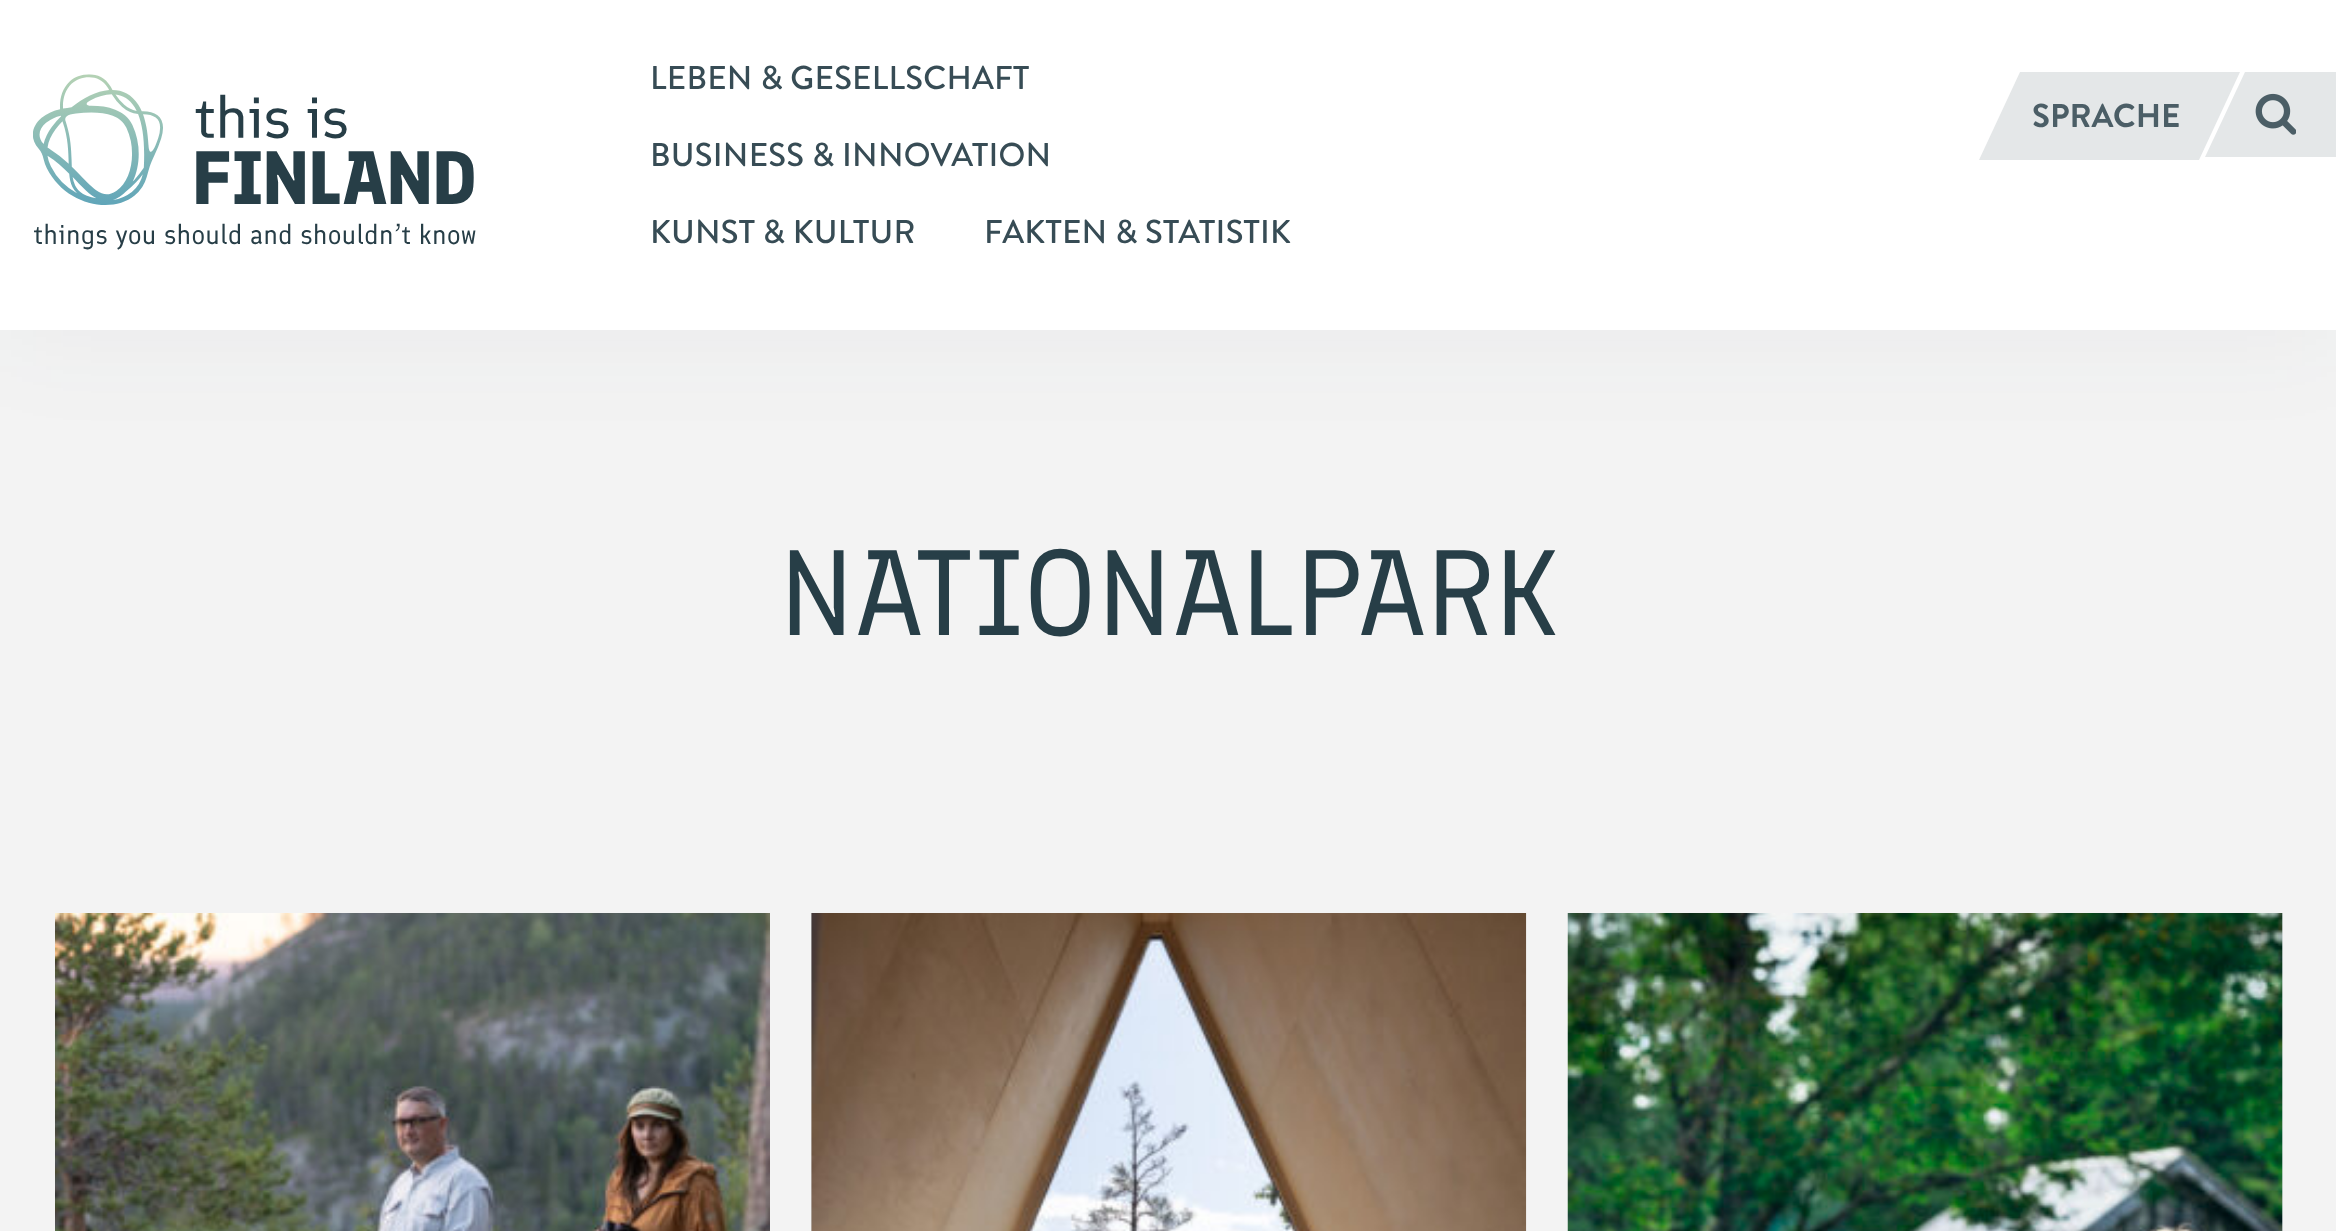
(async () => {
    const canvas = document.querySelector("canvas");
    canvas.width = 2336;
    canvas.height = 1231;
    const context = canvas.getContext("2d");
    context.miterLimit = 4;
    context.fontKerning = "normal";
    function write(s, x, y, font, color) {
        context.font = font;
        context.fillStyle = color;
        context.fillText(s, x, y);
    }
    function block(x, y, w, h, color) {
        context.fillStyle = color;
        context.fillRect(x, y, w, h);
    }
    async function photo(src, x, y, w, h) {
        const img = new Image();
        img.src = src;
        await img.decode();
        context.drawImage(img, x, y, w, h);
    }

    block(0, 0, 2336, 1231, "rgb(243, 243, 243)");
    context.fillStyle = "rgba(39, 62, 71, 0.05)";
    context.filter = "blur(55px)";
    context.beginPath();
    context.rect(0, 0, 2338, 330);
    context.fill();
    context.filter = "none";
    block(0, 0, 2336, 330, "rgb(255, 255, 255)");
    await photo("media/1.png", 33, 74, 443, 176);
    context.letterSpacing = "0.25px";
    write("LEBEN & GESELLSCHAFT", 650, 89, "500 33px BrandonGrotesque", "rgb(55, 76, 85)");
    write("BUSINESS & INNOVATION", 650, 166, "500 33px BrandonGrotesque", "rgb(55, 76, 85)");
    write("KUNST & KULTUR", 650, 243, "500 33px BrandonGrotesque", "rgb(55, 76, 85)");
    write("FAKTEN & STATISTIK", 984, 243, "500 33px BrandonGrotesque", "rgb(55, 76, 85)");
    context.fillStyle = "rgb(228, 231, 232)";
    context.beginPath();
    context.moveTo(2020, 72);
    context.lineTo(2240, 72);
    context.lineTo(2199, 160);
    context.lineTo(1979, 160);
    context.closePath();
    context.fill();
    context.letterSpacing = "0px";
    write("SPRACHE", 2032, 127, "bold 33px BrandonGrotesque", "rgb(75, 94, 102)");
    context.fillStyle = "rgb(228, 231, 232)";
    context.beginPath();
    context.moveTo(2245, 72);
    context.lineTo(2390, 72);
    context.lineTo(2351, 157);
    context.lineTo(2205, 157);
    context.closePath();
    context.fill();
    await photo("media/2.png", 2255, 93, 41, 42);
    write("NATIONALPARK", 779, 635, "121px Finlandica", "rgb(39, 62, 71)");
    await photo("media/3.png", 55, 913, 715, 318);
    block(811, 913, 1, 318, "rgb(223, 228, 230)");
    await photo("media/4.png", 811, 913, 716, 318);
    block(2282, 913, 1, 318, "rgb(223, 228, 230)");
    await photo("media/5.png", 1567, 913, 716, 318);
})();
